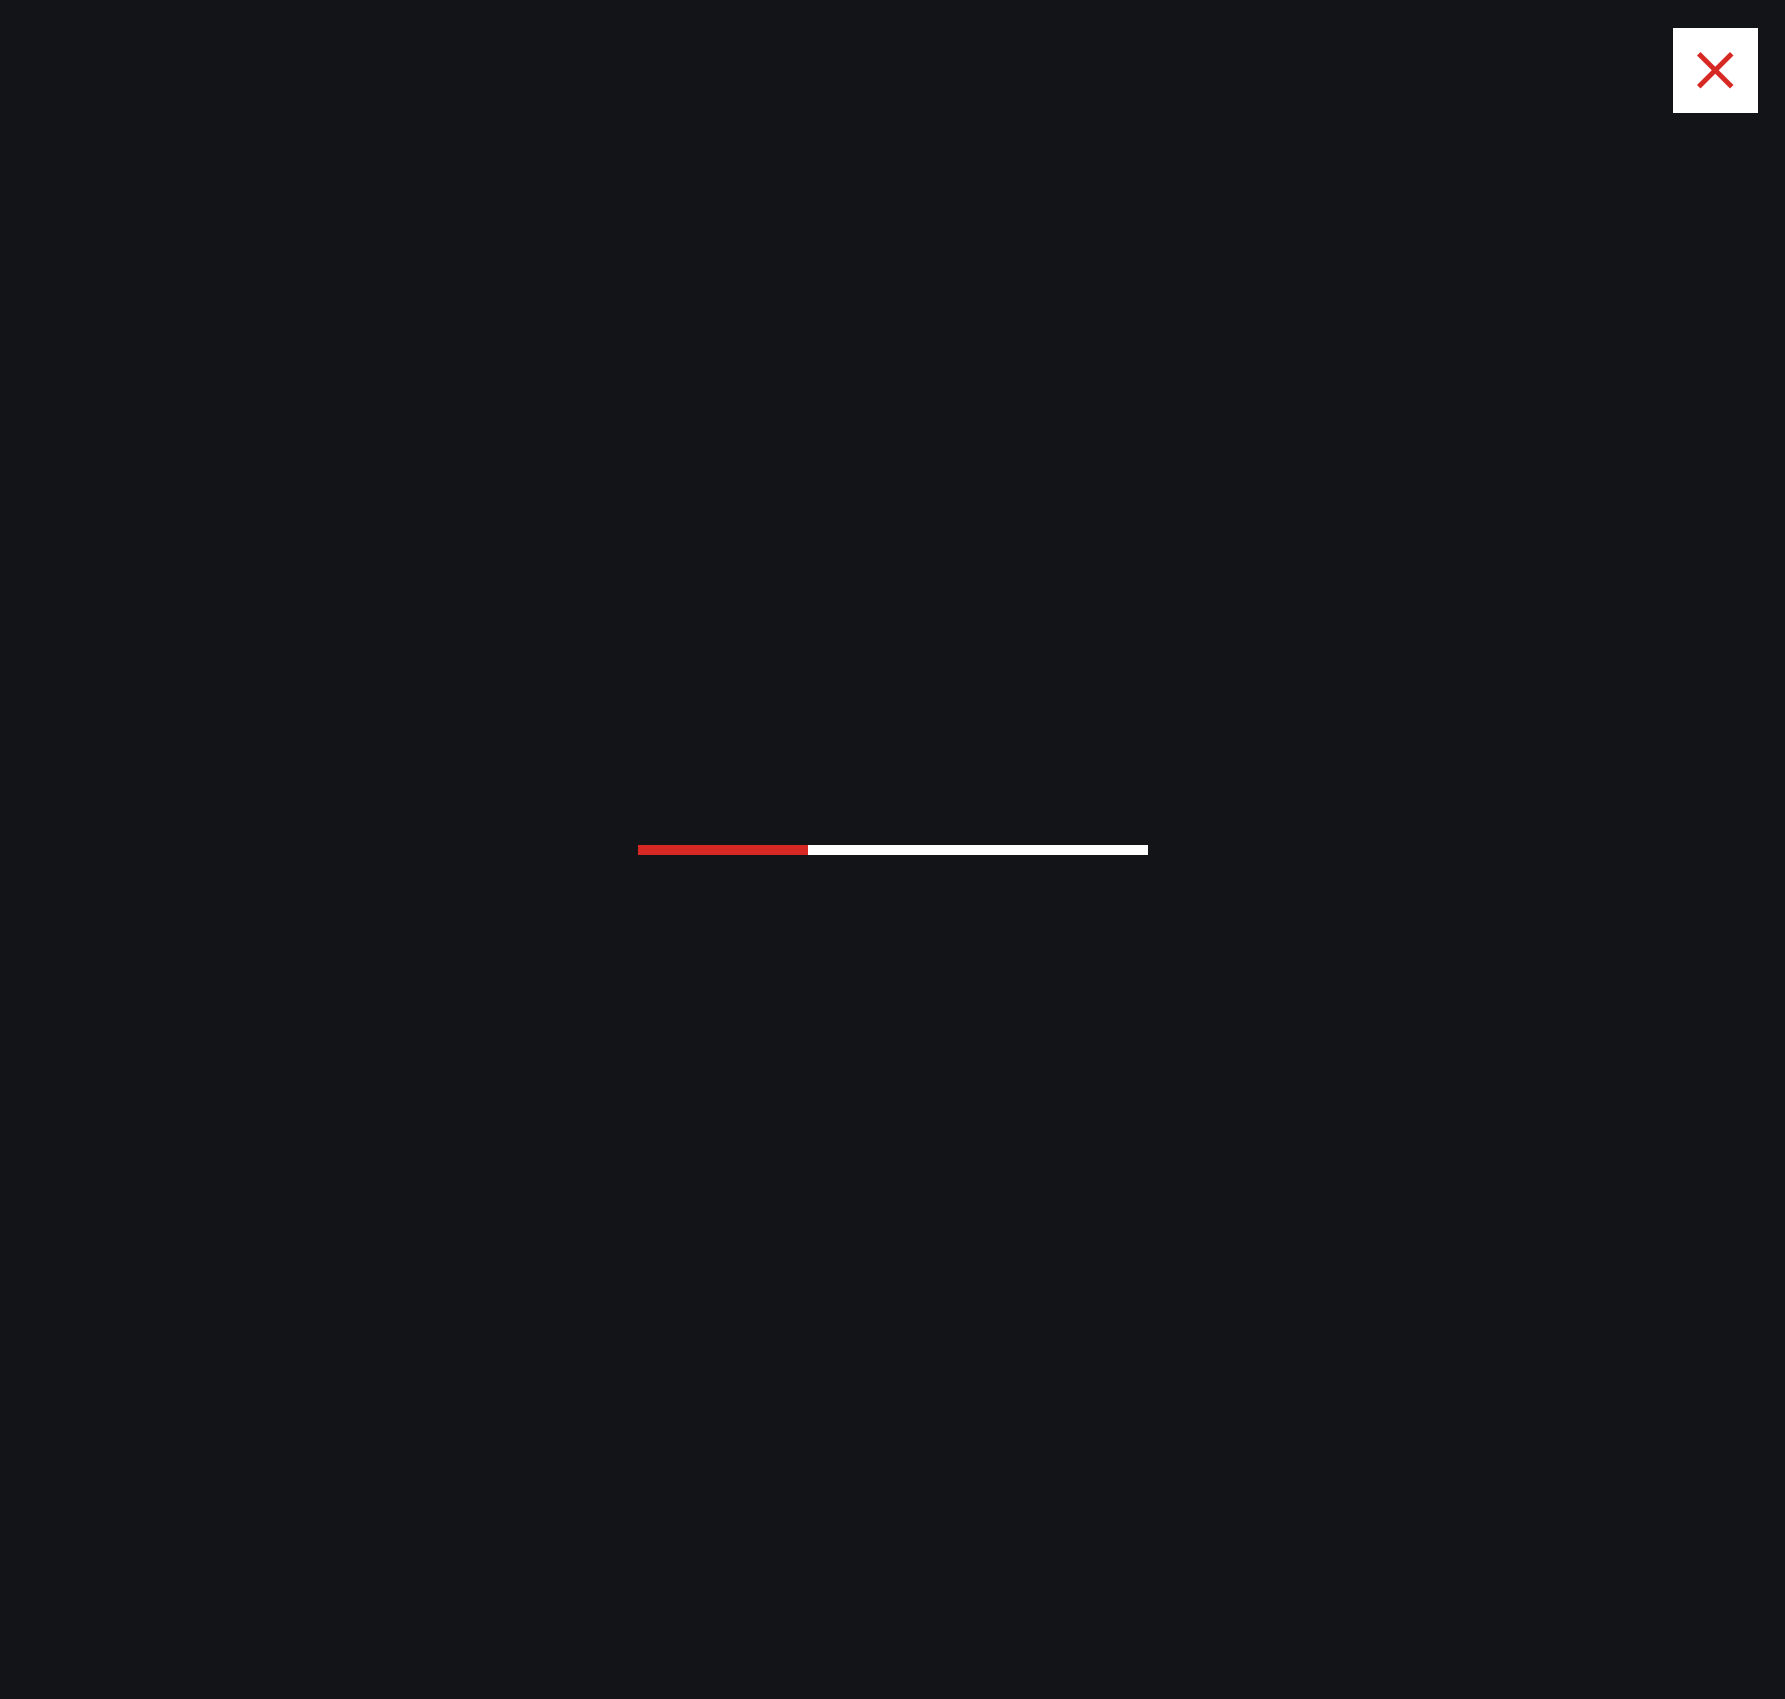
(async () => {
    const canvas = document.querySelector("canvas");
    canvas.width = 1785;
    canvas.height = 1699;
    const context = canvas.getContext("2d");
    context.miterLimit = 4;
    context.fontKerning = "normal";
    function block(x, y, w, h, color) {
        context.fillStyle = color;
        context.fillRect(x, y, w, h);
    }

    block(0, 0, 1785, 1699, "rgb(18, 20, 24)");
    block(1673, 28, 85, 85, "rgb(255, 255, 255)");
    context.fillStyle = "rgb(215, 41, 36)";
    context.beginPath();
    context.moveTo(1697, 85);
    context.lineTo(1730, 52);
    context.lineTo(1733.5, 55.5);
    context.lineTo(1700.5, 88.5);
    context.closePath();
    context.fill();
    context.beginPath();
    context.moveTo(1730, 88.5);
    context.lineTo(1697, 55.5);
    context.lineTo(1700.5, 52);
    context.lineTo(1733.5, 85);
    context.closePath();
    context.fill();
    block(808, 845, 340, 10, "rgb(255, 255, 255)");
    block(638, 845, 170, 10, "rgb(215, 41, 36)");
})();
